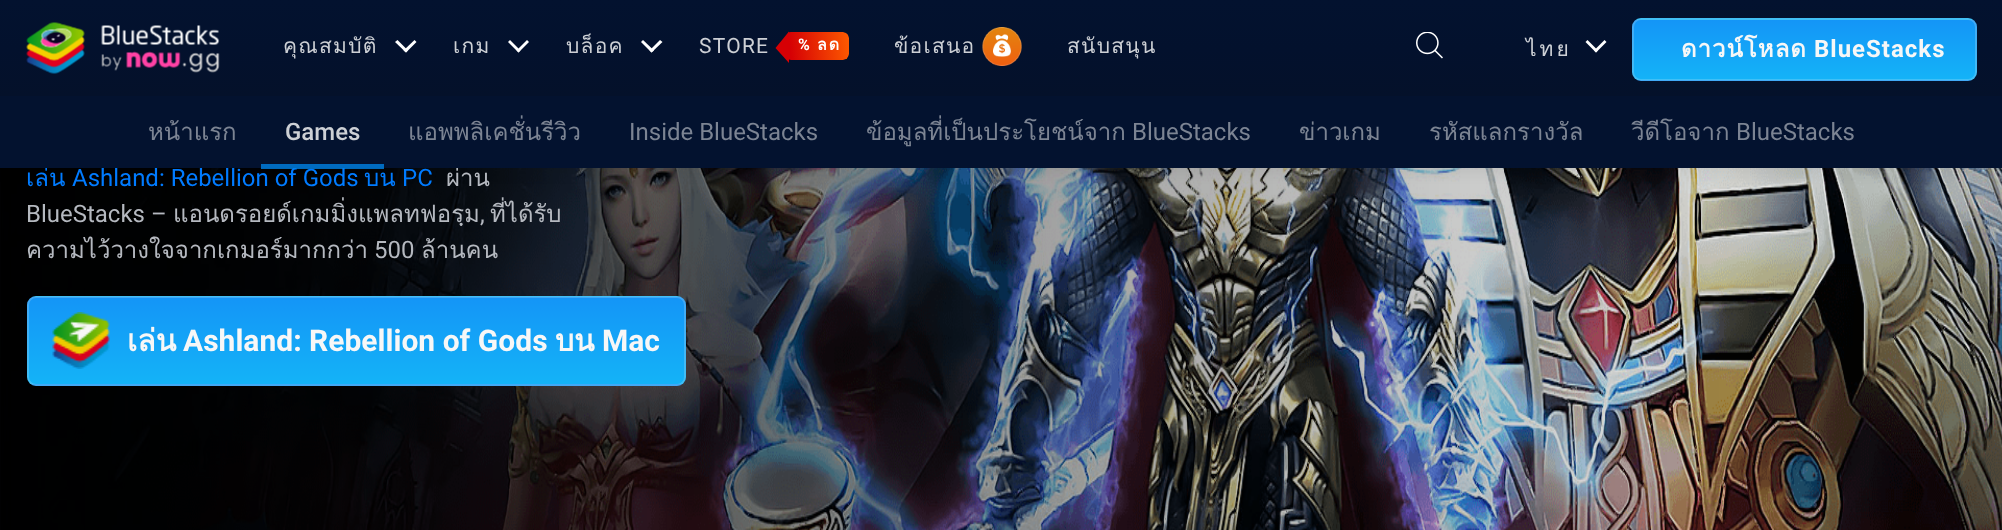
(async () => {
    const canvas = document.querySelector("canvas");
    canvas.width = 2002;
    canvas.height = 530;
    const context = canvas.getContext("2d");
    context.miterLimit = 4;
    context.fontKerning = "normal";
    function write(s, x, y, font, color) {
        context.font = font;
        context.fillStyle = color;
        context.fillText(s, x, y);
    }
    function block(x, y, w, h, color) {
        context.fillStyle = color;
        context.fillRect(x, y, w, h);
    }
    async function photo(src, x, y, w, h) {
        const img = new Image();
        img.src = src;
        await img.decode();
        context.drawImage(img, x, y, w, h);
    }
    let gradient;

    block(0, 0, 2002, 530, "rgb(255, 255, 255)");
    await photo("media/6.png", 0, 168, 2002, 362);
    context.fillStyle = "rgba(0, 0, 0, 0.05)";
    context.filter = "blur(6px)";
    context.beginPath();
    context.rect(0, 102, 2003, 72);
    context.fill();
    context.filter = "none";
    gradient = context.createLinearGradient(1001, 0, 1001, 96);
    gradient.addColorStop(0, "rgb(3, 18, 47)");
    gradient.addColorStop(0.51, "rgb(3, 17, 45)");
    gradient.addColorStop(1, "rgb(4, 17, 42)");
    context.fillStyle = gradient;
    context.fillRect(0, 0, 2002, 96);
    await photo("media/1.png", 26, 22, 59, 52);
    await photo("media/2.png", 101, 25, 119, 48);
    context.letterSpacing = "1.25px";
    write("คุณสมบัติ", 283, 53, "21px Loma", "rgb(205, 208, 213)");
    context.fillStyle = "rgb(255, 255, 255)";
    context.beginPath();
    context.moveTo(414.5, 40);
    context.lineTo(416.5, 42);
    context.lineTo(406, 52.5);
    context.lineTo(403.5, 50.5);
    context.closePath();
    context.fill();
    context.beginPath();
    context.moveTo(397.5, 40);
    context.lineTo(408, 50.5);
    context.lineTo(406, 52.5);
    context.lineTo(395, 42);
    context.closePath();
    context.fill();
    write("เกม", 453, 53, "21px Loma", "rgb(205, 208, 213)");
    context.fillStyle = "rgb(255, 255, 255)";
    context.beginPath();
    context.moveTo(527, 40);
    context.lineTo(529, 42);
    context.lineTo(518.5, 52.5);
    context.lineTo(516.5, 50.5);
    context.closePath();
    context.fill();
    context.beginPath();
    context.moveTo(510, 40);
    context.lineTo(520.5, 50.5);
    context.lineTo(518.5, 52.5);
    context.lineTo(508, 42);
    context.closePath();
    context.fill();
    write("บล็อค", 566, 53, "21px Loma", "rgb(205, 208, 213)");
    context.fillStyle = "rgb(255, 255, 255)";
    context.beginPath();
    context.moveTo(660, 40);
    context.lineTo(662.5, 42);
    context.lineTo(651.5, 52.5);
    context.lineTo(649.5, 50.5);
    context.closePath();
    context.fill();
    context.beginPath();
    context.moveTo(643, 40);
    context.lineTo(654, 50.5);
    context.lineTo(651.5, 52.5);
    context.lineTo(641, 42);
    context.closePath();
    context.fill();
    write("STORE", 699, 53, "21px Roboto", "rgb(205, 208, 213)");
    context.save();
    context.beginPath();
    context.roundRect(786, 32, 63, 28, [5, 6, 6, 5]);
    context.clip();
    gradient = context.createLinearGradient(852, 42, 786, 49);
    gradient.addColorStop(0, "rgb(255, 94, 0)");
    gradient.addColorStop(0.94, "rgb(214, 0, 4)");
    context.fillStyle = gradient;
    context.beginPath();
    context.roundRect(788, 32, 61, 28, [0, 6, 6, 0]);
    context.fill();
    context.restore();
    context.fillStyle = "rgb(214, 0, 4)";
    context.beginPath();
    context.moveTo(789, 31.5);
    context.lineTo(789, 63);
    context.lineTo(775.5, 48);
    context.closePath();
    context.fill();
    context.letterSpacing = "2px";
    write("%", 798, 50, "bold 16px Roboto", "rgb(255, 255, 255)");
    write("ลด", 817, 50, "bold 16px Loma", "rgb(255, 255, 255)");
    context.letterSpacing = "1.25px";
    write("ข้อเสนอ", 894, 53, "21px Loma", "rgb(205, 208, 213)");
    await photo("media/3.png", 982, 27, 40, 39);
    write("สนับสนุน", 1067, 53, "21px Loma", "rgb(205, 208, 213)");
    await photo("media/4.png", 1416, 32, 27, 27);
    context.letterSpacing = "3px";
    write("ไทย", 1526, 56, "21px Loma", "rgb(205, 208, 213)");
    context.fillStyle = "rgb(255, 255, 255)";
    context.beginPath();
    context.moveTo(1604.5, 40);
    context.lineTo(1606.5, 42);
    context.lineTo(1596, 52.5);
    context.lineTo(1594, 50.5);
    context.closePath();
    context.fill();
    context.beginPath();
    context.moveTo(1587.5, 40);
    context.lineTo(1598, 50.5);
    context.lineTo(1596, 52.5);
    context.lineTo(1585.5, 42);
    context.closePath();
    context.fill();
    context.save();
    context.beginPath();
    context.roundRect(1632, 18, 345, 63, 9);
    context.clip();
    gradient = context.createLinearGradient(1805, -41, 1805, 20);
    gradient.addColorStop(0, "rgb(20, 149, 247)");
    gradient.addColorStop(1, "rgb(20, 179, 247)");
    context.fillStyle = gradient;
    context.fillRect(1632, 18, 345, 2);
    gradient = context.createLinearGradient(1805, 19, 1805, 80);
    gradient.addColorStop(0, "rgb(20, 149, 247)");
    gradient.addColorStop(1, "rgb(20, 179, 247)");
    context.fillStyle = gradient;
    context.fillRect(1632, 20, 345, 60);
    gradient = context.createLinearGradient(1805, 79, 1805, 140);
    gradient.addColorStop(0, "rgb(20, 149, 247)");
    gradient.addColorStop(1, "rgb(20, 179, 247)");
    context.fillStyle = gradient;
    context.fillRect(1632, 80, 345, 1);
    context.restore();
    context.beginPath();
    context.roundRect(1633, 19, 343, 61, 8);
    context.strokeStyle = "rgba(247, 247, 247, 0.2)";
    context.lineWidth = 2;
    context.stroke();
    context.letterSpacing = "1px";
    write("ดาวน์โหลด", 1681, 57, "bold 24px Loma", "rgb(247, 247, 247)");
    write("BlueStacks", 1814, 57, "bold 24px Roboto", "rgb(247, 247, 247)");
    context.letterSpacing = "0px";
    write("เล่น", 26, 186, "24px Loma", "rgb(0, 123, 255)");
    write("Ashland: Rebellion of Gods", 72, 186, "24px Roboto", "rgb(0, 123, 255)");
    write("ผ่าน", 446, 186, "24px Loma", "rgb(181, 185, 192)");
    block(0, 96, 2002, 72, "rgb(3, 18, 47)");
    write("หน้าแรก", 148, 140, "24px Loma", "rgb(124, 132, 147)");
    write("Games", 285, 140, "500 24px Roboto", "rgb(205, 208, 213)");
    block(261, 164, 123, 5, "rgba(0, 130, 229, 0.8)");
    write("แอพพลิเคชั่นรีวิว", 408, 140, "24px Loma", "rgb(124, 132, 147)");
    write("Inside BlueStacks", 629, 140, "24px Roboto", "rgb(124, 132, 147)");
    write("ข้อมูลที่เป็นประโยชน์จาก", 866, 140, "24px Loma", "rgb(124, 132, 147)");
    write("BlueStacks", 1132, 140, "24px Roboto", "rgb(124, 132, 147)");
    write("ข่าวเกม", 1299, 140, "24px Loma", "rgb(124, 132, 147)");
    write("รหัสแลกรางวัล", 1429, 140, "24px Loma", "rgb(124, 132, 147)");
    write("วีดีโอจาก", 1631, 140, "24px Loma", "rgb(124, 132, 147)");
    write("BlueStacks", 1736, 140, "24px Roboto", "rgb(124, 132, 147)");
    write("บน", 364, 186, "24px Loma", "rgb(0, 123, 255)");
    write("PC", 402, 186, "24px Roboto", "rgb(0, 123, 255)");
    write("BlueStacks –", 26, 222, "24px Roboto", "rgb(181, 185, 192)");
    write("แอนดรอยด์เกมมิ่งแพลทฟอรฺม", 173, 222, "24px Loma", "rgb(181, 185, 192)");
    write(",", 480, 222, "24px Roboto", "rgb(181, 185, 192)");
    write("ที่ได้รับ", 490, 222, "24px Loma", "rgb(181, 185, 192)");
    write("ความไว้วางใจจากเกมอร์มากกว่า", 26, 258, "24px Loma", "rgb(181, 185, 192)");
    write("500", 374, 258, "24px Roboto", "rgb(181, 185, 192)");
    write("ล้านคน", 421, 258, "24px Loma", "rgb(181, 185, 192)");
    context.save();
    context.beginPath();
    context.roundRect(27, 296, 659, 90, 9);
    context.clip();
    gradient = context.createLinearGradient(356, 210, 356, 297);
    gradient.addColorStop(0, "rgb(20, 149, 247)");
    gradient.addColorStop(1, "rgb(20, 179, 247)");
    context.fillStyle = gradient;
    context.fillRect(27, 296, 659, 1);
    gradient = context.createLinearGradient(356, 297, 356, 384);
    gradient.addColorStop(0, "rgb(20, 149, 247)");
    gradient.addColorStop(1, "rgb(20, 179, 247)");
    context.fillStyle = gradient;
    context.fillRect(27, 297, 659, 87);
    gradient = context.createLinearGradient(356, 384, 356, 471);
    gradient.addColorStop(0, "rgb(20, 149, 247)");
    gradient.addColorStop(1, "rgb(20, 179, 247)");
    context.fillStyle = gradient;
    context.fillRect(27, 384, 659, 2);
    context.restore();
    context.beginPath();
    context.roundRect(28, 297, 657, 88, 8);
    context.stroke();
    await photo("media/5.png", 52, 312, 58, 57);
    write("เล่น", 127, 351, "bold 30px Loma", "rgb(247, 247, 247)");
    write("Ashland: Rebellion of Gods", 183, 351, "bold 30px Roboto", "rgb(247, 247, 247)");
    write("บน", 555, 351, "bold 30px Loma", "rgb(247, 247, 247)");
    write("Mac", 602, 351, "bold 30px Roboto", "rgb(247, 247, 247)");
})();
